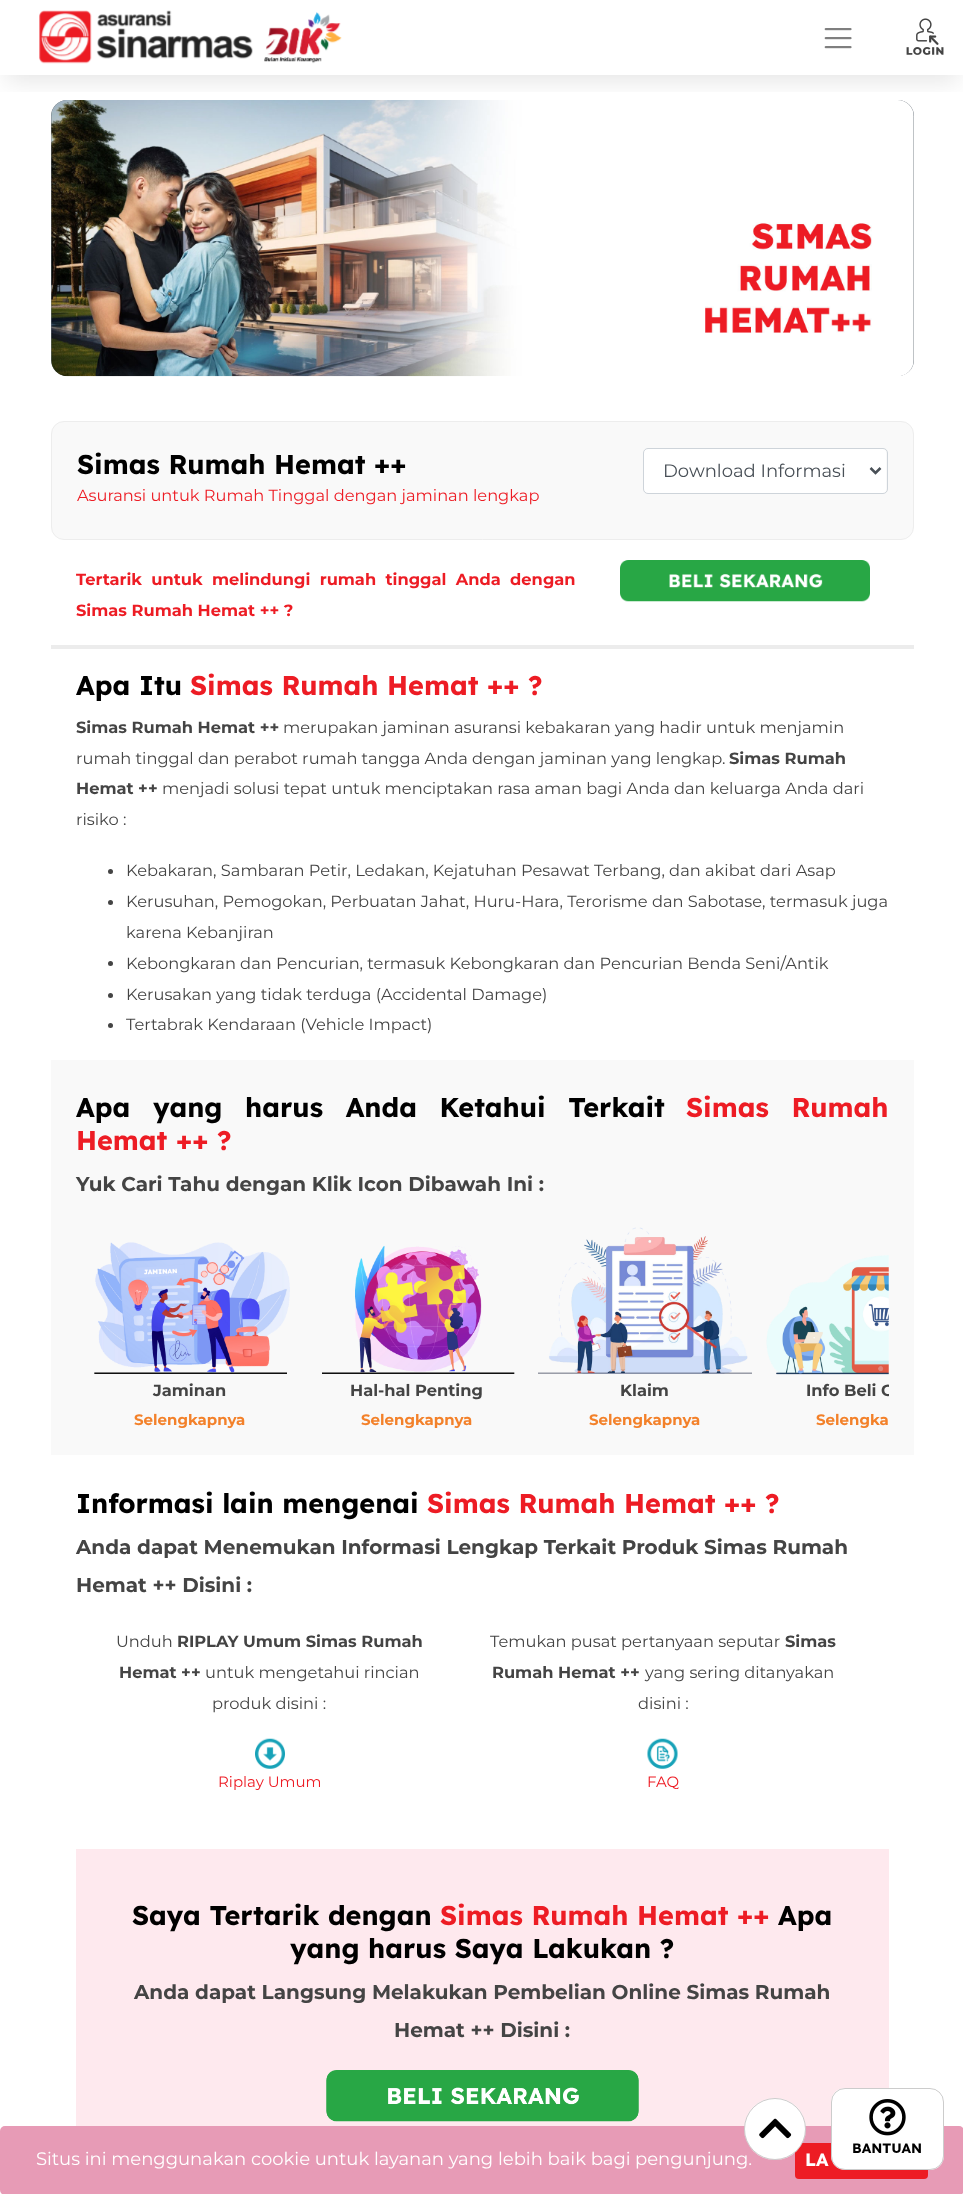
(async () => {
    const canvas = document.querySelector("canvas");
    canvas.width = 963;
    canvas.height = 2194;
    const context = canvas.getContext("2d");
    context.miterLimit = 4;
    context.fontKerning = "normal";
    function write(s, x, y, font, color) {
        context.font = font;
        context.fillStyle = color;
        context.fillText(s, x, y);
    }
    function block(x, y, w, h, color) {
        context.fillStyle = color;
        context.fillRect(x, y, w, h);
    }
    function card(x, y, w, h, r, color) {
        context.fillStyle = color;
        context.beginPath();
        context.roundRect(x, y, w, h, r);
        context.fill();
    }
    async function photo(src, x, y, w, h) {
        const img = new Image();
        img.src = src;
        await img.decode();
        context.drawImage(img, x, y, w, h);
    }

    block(0, 0, 963, 2194, "rgb(255, 255, 255)");
    card(51, 100, 863, 276, 16, "rgb(108, 117, 125)");
    await photo("media/5.png", 51, 100, 863, 277);
    context.save();
    context.beginPath();
    context.rect(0, 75, 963, 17);
    context.clip();
    context.fillStyle = "rgba(0, 0, 0, 0.1)";
    context.filter = "blur(12.5px)";
    context.beginPath();
    context.rect(6, 19, 952, 62);
    context.fill();
    context.filter = "none";
    context.restore();
    await photo("media/1.png", 39, 10, 214, 54);
    await photo("media/2.png", 264, 12, 78, 52);
    await photo("media/3.png", 824, 28, 28, 21);
    await photo("media/4.png", 906, 18, 38, 37);
    context.fillStyle = "rgb(249, 249, 249)";
    context.beginPath();
    context.roundRect(51.5, 421.5, 862, 118, 12.5);
    context.fill();
    context.strokeStyle = "rgb(237, 237, 237)";
    context.stroke();
    write("Simas Rumah Hemat ++", 77, 474, "bold 27px Lexend Deca", "rgb(0, 0, 0)");
    write("Asuransi untuk Rumah Tinggal dengan jaminan lengkap", 77, 501, "16.25px Montserrat", "rgb(237, 28, 36)");
    card(644, 449, 242, 44, 4, "rgb(255, 255, 255)");
    context.beginPath();
    context.roundRect(643.5, 448.5, 244, 45, 4.5);
    context.strokeStyle = "rgb(206, 212, 218)";
    context.stroke();
    context.beginPath();
    context.moveTo(870.5, 468);
    context.lineTo(875.5, 473);
    context.lineTo(880.5, 468);
    context.strokeStyle = "rgb(73, 80, 87)";
    context.lineWidth = 2.5;
    context.stroke();
    write("Download Informasi", 663, 477, "18px Montserrat", "rgb(73, 80, 87)");
    context.wordSpacing = "4.75px";
    write("Tertarik untuk melindungi rumah tinggal Anda dengan", 76, 585, "bold 16.25px Montserrat", "rgb(237, 28, 36)");
    context.wordSpacing = "0px";
    write("Simas Rumah Hemat ++ ?", 76, 616, "bold 16.25px Montserrat", "rgb(237, 28, 36)");
    await photo("media/6.png", 620, 560, 250, 42);
    block(51, 645, 863, 4, "rgb(236, 236, 236)");
    write("Apa Itu", 76, 695, "bold 27px Lexend Deca", "rgb(0, 0, 0)");
    write("Simas Rumah Hemat ++ ?", 190, 695, "bold 27px Lexend Deca", "rgb(237, 28, 36)");
    write("Simas Rumah Hemat ++", 76, 733, "bold 16.25px Montserrat", "rgb(68, 68, 68)");
    write("merupakan jaminan asuransi kebakaran yang hadir untuk menjamin", 283, 733, "16.25px Montserrat", "rgb(68, 68, 68)");
    write("rumah tinggal dan perabot rumah tangga Anda dengan jaminan yang lengkap.", 76, 764, "16.25px Montserrat", "rgb(68, 68, 68)");
    write("Simas Rumah", 729, 764, "bold 16.25px Montserrat", "rgb(68, 68, 68)");
    write("Hemat ++", 76, 794, "bold 16.25px Montserrat", "rgb(68, 68, 68)");
    write("menjadi solusi tepat untuk menciptakan rasa aman bagi Anda dan keluarga Anda dari", 162, 794, "16.25px Montserrat", "rgb(68, 68, 68)");
    write("risiko :", 76, 825, "16.25px Montserrat", "rgb(68, 68, 68)");
    context.beginPath();
    context.arc(110.5, 871.5, 2.5, 0, Math.PI * 2);
    context.fill();
    write("Kebakaran, Sambaran Petir, Ledakan, Kejatuhan Pesawat Terbang, dan akibat dari Asap", 126, 876, "16.25px Montserrat", "rgb(68, 68, 68)");
    context.beginPath();
    context.arc(110.5, 902.5, 2.5, 0, Math.PI * 2);
    context.fill();
    write("Kerusuhan, Pemogokan, Perbuatan Jahat, Huru-Hara, Terorisme dan Sabotase, termasuk juga", 126, 907, "16.25px Montserrat", "rgb(68, 68, 68)");
    write("karena Kebanjiran", 126, 938, "16.25px Montserrat", "rgb(68, 68, 68)");
    context.beginPath();
    context.arc(110.5, 963.5, 2.5, 0, Math.PI * 2);
    context.fill();
    write("Kebongkaran dan Pencurian, termasuk Kebongkaran dan Pencurian Benda Seni/Antik", 126, 969, "16.25px Montserrat", "rgb(68, 68, 68)");
    context.beginPath();
    context.arc(110.5, 995.5, 2.5, 0, Math.PI * 2);
    context.fill();
    write("Kerusakan yang tidak terduga (Accidental Damage)", 126, 1000, "16.25px Montserrat", "rgb(68, 68, 68)");
    context.beginPath();
    context.arc(110.5, 1025.5, 2.5, 0, Math.PI * 2);
    context.fill();
    write("Tertabrak Kendaraan (Vehicle Impact)", 126, 1030, "16.25px Montserrat", "rgb(68, 68, 68)");
    block(51, 1060, 863, 395, "rgb(249, 249, 249)");
    context.wordSpacing = "14px";
    write("Apa yang harus Anda Ketahui Terkait", 76, 1117, "bold 27px Lexend Deca", "rgb(0, 0, 0)");
    write("Simas Rumah", 686, 1117, "bold 27px Lexend Deca", "rgb(237, 28, 36)");
    context.wordSpacing = "0px";
    write("Hemat ++ ?", 76, 1150, "bold 27px Lexend Deca", "rgb(237, 28, 36)");
    write("Yuk Cari Tahu dengan Klik Icon Dibawah Ini :", 76, 1191, "bold 20px Montserrat", "rgb(68, 68, 68)");
    await photo("media/7.png", 94, 1242, 196, 132);
    write("Jaminan", 153, 1396, "bold 16.25px Montserrat", "rgb(68, 68, 68)");
    write("Selengkapnya", 134, 1425, "bold 15px Montserrat", "rgb(243, 129, 42)");
    await photo("media/8.png", 322, 1245, 193, 129);
    write("Hal-hal Penting", 350, 1396, "bold 16.25px Montserrat", "rgb(68, 68, 68)");
    write("Selengkapnya", 361, 1425, "bold 15px Montserrat", "rgb(243, 129, 42)");
    await photo("media/9.png", 538, 1227, 214, 147);
    write("Klaim", 620, 1396, "bold 16.25px Montserrat", "rgb(68, 68, 68)");
    write("Selengkapnya", 589, 1425, "bold 15px Montserrat", "rgb(243, 129, 42)");
    await photo("media/10.png", 766, 1255, 123, 120);
    context.save();
    context.beginPath();
    context.rect(76, 1224, 813, 231);
    context.clip();
    write("Info Beli O", 806, 1396, "bold 16.25px Montserrat", "rgb(68, 68, 68)");
    context.restore();
    write("Selengka", 816, 1425, "bold 15px Montserrat", "rgb(243, 129, 42)");
    write("Informasi lain mengenai", 76, 1513, "bold 27px Lexend Deca", "rgb(0, 0, 0)");
    write("Simas Rumah Hemat ++ ?", 427, 1513, "bold 27px Lexend Deca", "rgb(237, 28, 36)");
    write("Anda dapat Menemukan Informasi Lengkap Terkait Produk Simas Rumah", 76, 1554, "bold 20px Montserrat", "rgb(68, 68, 68)");
    write("Hemat ++ Disini :", 76, 1592, "bold 20px Montserrat", "rgb(68, 68, 68)");
    write("Unduh", 116, 1647, "16.25px Montserrat", "rgb(68, 68, 68)");
    write("RIPLAY Umum Simas Rumah", 177, 1647, "bold 16.25px Montserrat", "rgb(68, 68, 68)");
    write("Hemat ++", 119, 1678, "bold 16.25px Montserrat", "rgb(68, 68, 68)");
    write("untuk mengetahui rincian", 205, 1678, "16.25px Montserrat", "rgb(68, 68, 68)");
    write("produk disini :", 212, 1709, "16.25px Montserrat", "rgb(68, 68, 68)");
    await photo("media/11.png", 255, 1738, 30, 31);
    write("Riplay Umum", 218, 1787, "15px Montserrat", "rgb(237, 28, 36)");
    write("Temukan pusat pertanyaan seputar", 490, 1647, "16.25px Montserrat", "rgb(68, 68, 68)");
    write("Simas", 785, 1647, "bold 16.25px Montserrat", "rgb(68, 68, 68)");
    write("Rumah Hemat ++", 492, 1678, "bold 16.25px Montserrat", "rgb(68, 68, 68)");
    write("yang sering ditanyakan", 645, 1678, "16.25px Montserrat", "rgb(68, 68, 68)");
    write("disini :", 638, 1709, "16.25px Montserrat", "rgb(68, 68, 68)");
    await photo("media/12.png", 647, 1738, 31, 31);
    write("FAQ", 647, 1787, "15px Montserrat", "rgb(237, 28, 36)");
    block(76, 1849, 813, 277, "rgb(254, 233, 238)");
    write("Saya Tertarik dengan", 132, 1925, "bold 27px Lexend Deca", "rgb(0, 0, 0)");
    write("Simas Rumah Hemat ++", 440, 1925, "bold 27px Lexend Deca", "rgb(237, 28, 36)");
    write("Apa", 778, 1925, "bold 27px Lexend Deca", "rgb(0, 0, 0)");
    write("yang harus Saya Lakukan ?", 290, 1958, "bold 27px Lexend Deca", "rgb(0, 0, 0)");
    write("Anda dapat Langsung Melakukan Pembelian Online Simas Rumah", 134, 1999, "bold 20px Montserrat", "rgb(68, 68, 68)");
    write("Hemat ++ Disini :", 394, 2037, "bold 20px Montserrat", "rgb(68, 68, 68)");
    await photo("media/13.png", 326, 2070, 313, 52);
    card(0, 2126, 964, 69, 5, "rgb(231, 155, 182)");
    card(795, 2143, 133, 36, 4, "rgb(237, 28, 36)");
    context.fillStyle = "rgb(255, 255, 255)";
    context.beginPath();
    context.arc(775, 2129, 31, 0, Math.PI * 2);
    context.fill();
    write("pengunjung.", 635, 2165, "18px Montserrat", "rgb(255, 255, 255)");
    context.beginPath();
    context.arc(775, 2129, 30.5, 0, Math.PI * 2);
    context.strokeStyle = "rgba(68, 68, 68, 0.27)";
    context.lineWidth = 1;
    context.stroke();
    await photo("media/14.png", 759, 2118, 33, 21);
    card(831, 2088, 113, 82, 14, "rgb(255, 255, 255)");
    context.beginPath();
    context.roundRect(831.5, 2088.5, 112, 81, 13.5);
    context.stroke();
    await photo("media/15.png", 869, 2099, 37, 37);
    write("BANTUAN", 852, 2153, "bold 13.75px Lexend Deca", "rgb(0, 0, 0)");
    write("Situs ini menggunakan cookie untuk layanan yang lebih baik bagi", 36, 2165, "18px Montserrat", "rgb(255, 255, 255)");
    write("LA", 805, 2166, "bold 18px Lexend Deca", "rgb(255, 255, 255)");
})();
